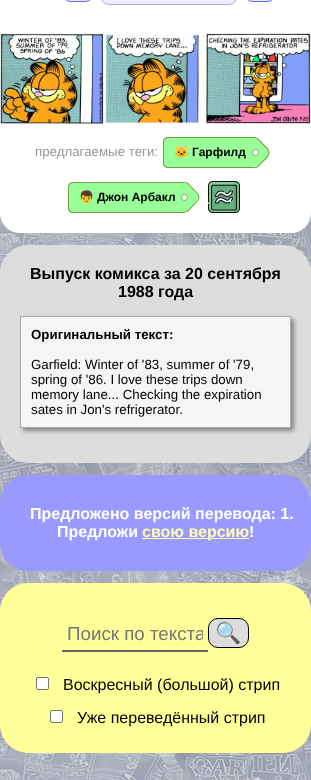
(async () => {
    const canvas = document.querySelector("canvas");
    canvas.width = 311;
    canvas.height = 780;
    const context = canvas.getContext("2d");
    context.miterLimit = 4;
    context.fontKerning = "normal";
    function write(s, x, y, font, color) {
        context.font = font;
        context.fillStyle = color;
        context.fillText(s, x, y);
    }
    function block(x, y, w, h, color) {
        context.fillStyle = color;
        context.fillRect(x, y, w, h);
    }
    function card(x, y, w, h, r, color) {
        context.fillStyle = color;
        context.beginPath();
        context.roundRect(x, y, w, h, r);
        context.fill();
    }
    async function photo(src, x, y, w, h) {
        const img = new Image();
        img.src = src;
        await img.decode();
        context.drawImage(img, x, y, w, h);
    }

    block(0, 0, 311, 780, "rgb(255, 255, 255)");
    await photo("media/1.png", 0, 213, 311, 567);
    card(0, -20, 311, 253, 20, "rgb(255, 255, 255)");
    context.fillStyle = "rgb(238, 238, 255)";
    context.beginPath();
    context.roundRect(61.5, -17.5, 33, 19, 16.5);
    context.fill();
    context.strokeStyle = "rgb(102, 102, 255)";
    context.stroke();
    context.beginPath();
    context.roundRect(100.5, -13.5, 137, 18, 12.5);
    context.fill();
    context.strokeStyle = "rgb(170, 170, 221)";
    context.stroke();
    context.beginPath();
    context.roundRect(243.5, -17.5, 33, 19, 16.5);
    context.fill();
    context.strokeStyle = "rgb(102, 102, 255)";
    context.stroke();
    await photo("media/2.png", 0, 33, 311, 91);
    write("предлагаемые теги:", 35, 156, "13.3px Liberation Sans", "rgb(153, 153, 153)");
    context.fillStyle = "rgb(153, 255, 153)";
    context.beginPath();
    context.roundRect(164, 138, 92, 29, [4, 0, 0, 4]);
    context.fill();
    context.fillStyle = "rgb(118, 158, 66)";
    context.beginPath();
    context.moveTo(168, 137);
    context.lineTo(256, 137);
    context.lineTo(256, 168);
    context.lineTo(168, 168);
    context.bezierCurveTo(165, 168, 163, 166, 163, 163);
    context.lineTo(163, 142);
    context.bezierCurveTo(163, 139, 165, 137, 168, 137);
    context.closePath();
    context.moveTo(168, 138);
    context.lineTo(256, 138);
    context.lineTo(256, 167);
    context.lineTo(168, 167);
    context.bezierCurveTo(166, 167, 164, 165, 164, 163);
    context.lineTo(164, 142);
    context.bezierCurveTo(164, 140, 166, 138, 168, 138);
    context.closePath();
    context.fill("evenodd");
    write("🐱", 174, 156, "bold 12px Noto Color Emoji", "rgb(0, 0, 0)");
    context.fillStyle = "rgb(153, 255, 153)";
    context.beginPath();
    context.moveTo(258, 138.5);
    context.lineTo(267.5, 148);
    context.bezierCurveTo(270, 150.5, 270, 155, 267.5, 157.5);
    context.lineTo(258, 167);
    context.bezierCurveTo(257, 168, 255, 168, 254, 167);
    context.lineTo(240, 152.5);
    context.lineTo(254, 138.5);
    context.bezierCurveTo(255, 137.5, 257, 137.5, 258, 138.5);
    context.closePath();
    context.fill();
    write("Гарфилд", 192, 156, "bold 12px Liberation Sans", "rgb(0, 0, 0)");
    context.fillStyle = "rgb(118, 158, 66)";
    context.beginPath();
    context.moveTo(258, 138.5);
    context.lineTo(267.5, 148);
    context.bezierCurveTo(270, 150.5, 270, 155, 267.5, 157.5);
    context.lineTo(258, 167);
    context.bezierCurveTo(257, 168, 255, 168, 254, 167);
    context.lineTo(240, 152.5);
    context.lineTo(254, 138.5);
    context.bezierCurveTo(255, 137.5, 257, 137.5, 258, 138.5);
    context.closePath();
    context.moveTo(257.5, 139.5);
    context.lineTo(266.5, 148.5);
    context.bezierCurveTo(269, 151, 269, 154.5, 266.5, 157);
    context.lineTo(257.5, 166);
    context.bezierCurveTo(256.5, 167.5, 254.5, 167.5, 254, 167);
    context.lineTo(240, 152.5);
    context.lineTo(254, 138.5);
    context.bezierCurveTo(254.5, 138, 256.5, 138, 257.5, 139.5);
    context.closePath();
    context.fill("evenodd");
    context.fillStyle = "rgb(255, 255, 255)";
    context.beginPath();
    context.arc(255.5, 152.5, 3, 0, Math.PI * 2);
    context.fill();
    context.strokeStyle = "rgb(131, 171, 82)";
    context.stroke();
    context.fillStyle = "rgb(153, 255, 153)";
    context.beginPath();
    context.roundRect(69, 183, 116, 29, [4, 0, 0, 4]);
    context.fill();
    context.fillStyle = "rgb(118, 158, 66)";
    context.beginPath();
    context.moveTo(73, 182);
    context.lineTo(185, 182);
    context.lineTo(185, 213);
    context.lineTo(73, 213);
    context.bezierCurveTo(70, 213, 68, 211, 68, 208);
    context.lineTo(68, 187);
    context.bezierCurveTo(68, 184, 70, 182, 73, 182);
    context.closePath();
    context.moveTo(73, 183);
    context.lineTo(185, 183);
    context.lineTo(185, 212);
    context.lineTo(73, 212);
    context.bezierCurveTo(71, 212, 69, 210, 69, 208);
    context.lineTo(69, 187);
    context.bezierCurveTo(69, 185, 71, 183, 73, 183);
    context.closePath();
    context.fill("evenodd");
    write("👦", 79, 201, "bold 12px Noto Color Emoji", "rgb(0, 0, 0)");
    context.fillStyle = "rgb(153, 255, 153)";
    context.beginPath();
    context.moveTo(188, 183);
    context.lineTo(197, 192.5);
    context.bezierCurveTo(200, 195, 200, 199.5, 197, 202);
    context.lineTo(188, 211.5);
    context.bezierCurveTo(187, 212.5, 185, 212.5, 184, 211.5);
    context.lineTo(169.5, 197);
    context.lineTo(184, 183);
    context.bezierCurveTo(185, 182, 187, 182, 188, 183);
    context.closePath();
    context.fill();
    write("Джон Арбакл", 97, 201, "bold 12px Liberation Sans", "rgb(0, 0, 0)");
    context.fillStyle = "rgb(118, 158, 66)";
    context.beginPath();
    context.moveTo(188, 183);
    context.lineTo(197, 192.5);
    context.bezierCurveTo(200, 195, 200, 199.5, 197, 202);
    context.lineTo(188, 211.5);
    context.bezierCurveTo(187, 212.5, 185, 212.5, 184, 211.5);
    context.lineTo(169.5, 197);
    context.lineTo(184, 183);
    context.bezierCurveTo(185, 182, 187, 182, 188, 183);
    context.closePath();
    context.moveTo(187.5, 184);
    context.lineTo(196.5, 193);
    context.bezierCurveTo(199, 195.5, 199, 199, 196.5, 201.5);
    context.lineTo(187.5, 210.5);
    context.bezierCurveTo(186, 212, 184.5, 212, 184, 211.5);
    context.lineTo(169.5, 197);
    context.lineTo(184, 183);
    context.bezierCurveTo(184.5, 182.5, 186, 182.5, 187.5, 184);
    context.closePath();
    context.fill("evenodd");
    context.fillStyle = "rgb(255, 255, 255)";
    context.beginPath();
    context.arc(184.5, 197.5, 3, 0, Math.PI * 2);
    context.fill();
    context.stroke();
    await photo("media/3.png", 208, 181, 32, 32);
    card(0, 245, 311, 218, 28, "rgb(221, 221, 221)");
    write("Выпуск комикса за 20 сентября", 30, 279, "bold 16px Liberation Sans", "rgb(0, 0, 0)");
    write("1988 года", 118, 297, "bold 16px Liberation Sans", "rgb(0, 0, 0)");
    context.fillStyle = "rgba(0, 0, 0, 0.4)";
    context.filter = "blur(2px)";
    context.beginPath();
    context.rect(23, 319, 271, 112);
    context.fill();
    context.filter = "none";
    context.fillStyle = "rgb(245, 245, 245)";
    context.beginPath();
    context.rect(20.5, 316.5, 270, 111);
    context.fill();
    context.strokeStyle = "rgb(170, 170, 170)";
    context.stroke();
    write("Оригинальный текст:", 31, 339, "bold 13.3px Liberation Sans", "rgb(0, 0, 0)");
    write("Garfield: Winter of '83, summer of '79,", 31, 369, "13.3px Liberation Sans", "rgb(0, 0, 0)");
    write("spring of '86. I love these trips down", 31, 384, "13.3px Liberation Sans", "rgb(0, 0, 0)");
    write("memory lane... Checking the expiration", 31, 399, "13.3px Liberation Sans", "rgb(0, 0, 0)");
    write("sates in Jon's refrigerator.", 31, 414, "13.3px Liberation Sans", "rgb(0, 0, 0)");
    card(0, 475, 311, 96, 28, "rgb(153, 153, 255)");
    write("Предложено версий перевода: 1.", 30, 519, "bold 16px Liberation Sans", "rgb(255, 255, 255)");
    write("Предложи", 57, 537, "bold 16px Liberation Sans", "rgb(255, 255, 255)");
    block(142, 538, 107, 1, "rgb(255, 255, 170)");
    write("свою версию", 142, 537, "bold 16px Liberation Sans", "rgb(255, 255, 170)");
    write("!", 249, 537, "bold 16px Liberation Sans", "rgb(255, 255, 255)");
    card(0, 583, 311, 170, 28, "rgb(255, 255, 153)");
    block(62, 650, 146, 2, "rgb(102, 102, 102)");
    context.save();
    context.beginPath();
    context.rect(67, 623, 136, 22);
    context.clip();
    write("Поиск по текста", 67, 640, "18.75px Liberation Sans", "rgb(117, 117, 117)");
    context.restore();
    context.fillStyle = "rgb(221, 221, 221)";
    context.beginPath();
    context.roundRect(208.5, 618.5, 40, 29, 9.5);
    context.fill();
    context.strokeStyle = "rgb(0, 0, 0)";
    context.stroke();
    write("🔍", 215, 640, "21px Noto Color Emoji", "rgb(0, 0, 0)");
    context.fillStyle = "rgb(255, 255, 255)";
    context.beginPath();
    context.roundRect(36.5, 677.5, 12, 12, 1.5);
    context.fill();
    context.strokeStyle = "rgb(118, 118, 118)";
    context.stroke();
    write("Воскресный (большой) стрип", 63, 690, "16px Liberation Sans", "rgb(0, 0, 0)");
    context.fillStyle = "rgb(255, 255, 255)";
    context.beginPath();
    context.roundRect(50.5, 710.5, 12, 12, 1.5);
    context.fill();
    context.stroke();
    write("Уже переведённый стрип", 77, 723, "16px Liberation Sans", "rgb(0, 0, 0)");
})();
